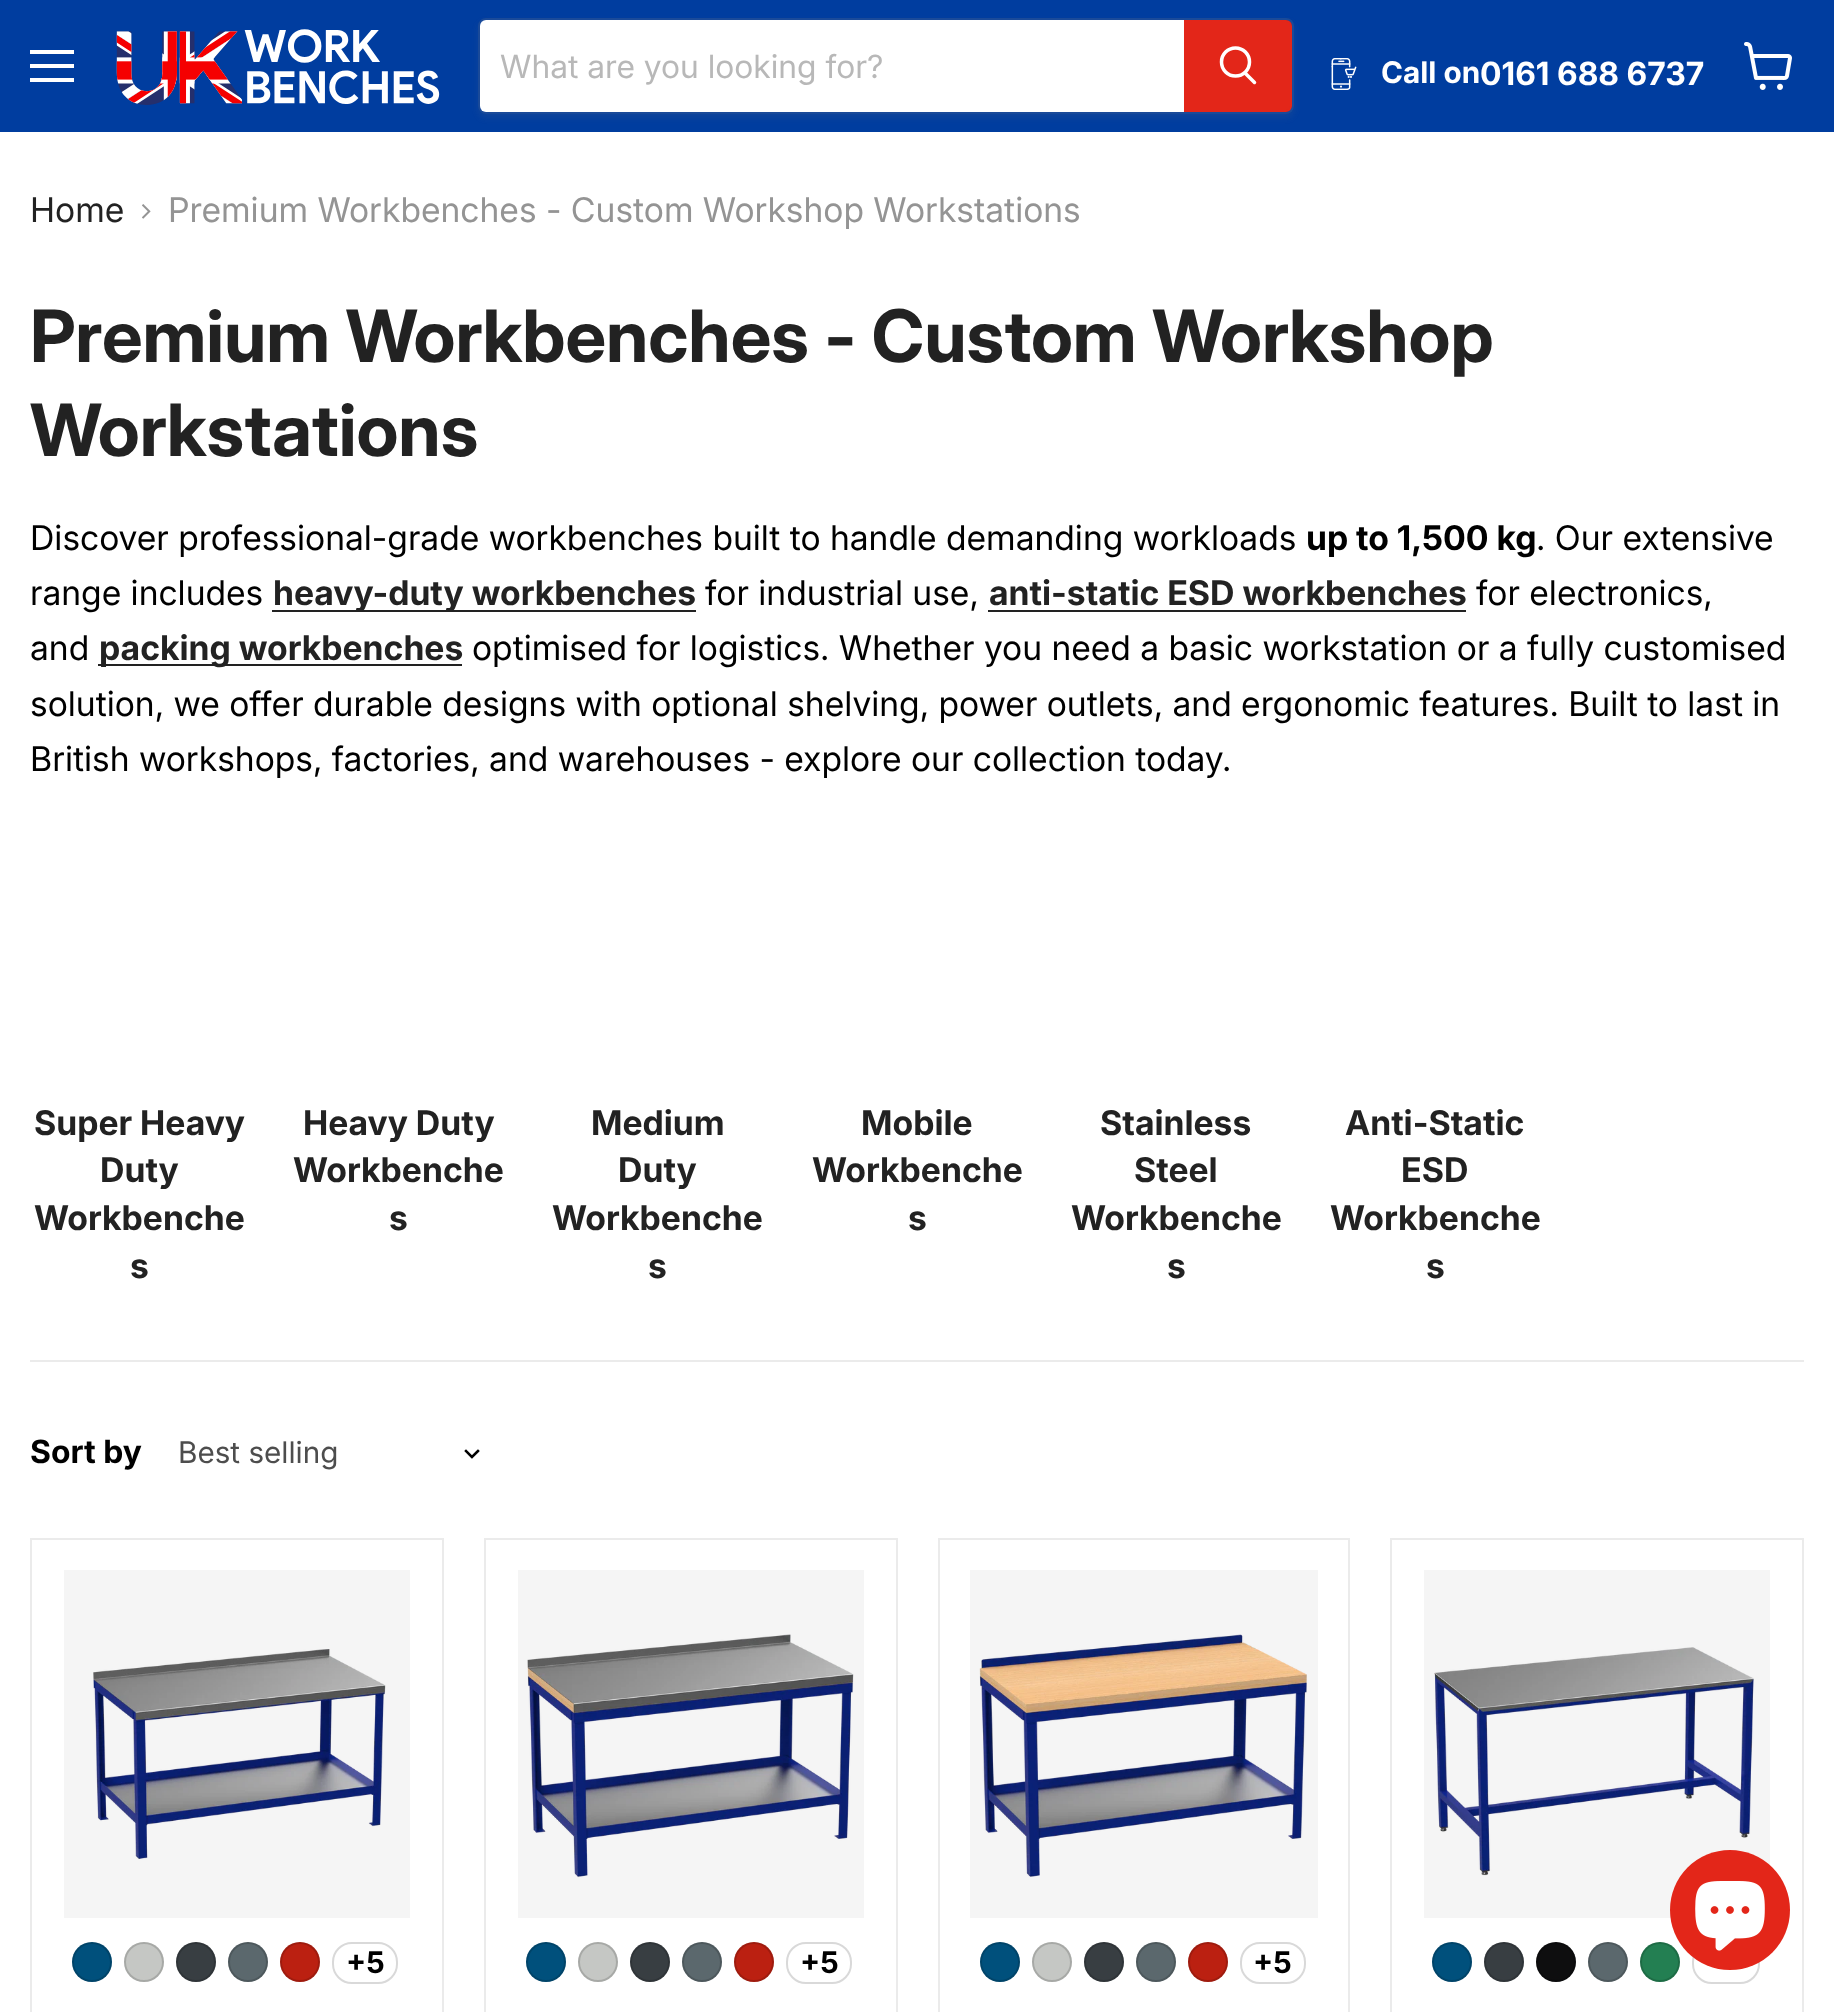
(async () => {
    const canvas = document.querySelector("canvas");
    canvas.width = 1834;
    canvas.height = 2012;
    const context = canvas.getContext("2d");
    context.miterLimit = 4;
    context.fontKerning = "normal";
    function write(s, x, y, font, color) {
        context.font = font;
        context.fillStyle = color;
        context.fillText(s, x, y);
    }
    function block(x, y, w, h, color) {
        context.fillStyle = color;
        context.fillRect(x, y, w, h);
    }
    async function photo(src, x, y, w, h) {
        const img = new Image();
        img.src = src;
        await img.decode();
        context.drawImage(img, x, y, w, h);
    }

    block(0, 0, 1834, 2012, "rgb(255, 255, 255)");
    block(0, 0, 1834, 132, "rgb(0, 61, 159)");
    block(30, 50, 44, 4, "rgb(255, 255, 255)");
    block(30, 64, 44, 4, "rgb(255, 255, 255)");
    block(30, 78, 44, 4, "rgb(255, 255, 255)");
    await photo("media/1.png", 116, 29, 324, 76);
    context.save();
    context.beginPath();
    context.moveTo(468, 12);
    context.lineTo(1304, 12);
    context.lineTo(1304, 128);
    context.lineTo(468, 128);
    context.closePath();
    context.moveTo(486, 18);
    context.lineTo(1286, 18);
    context.bezierCurveTo(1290.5, 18, 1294, 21.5, 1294, 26);
    context.lineTo(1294, 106);
    context.bezierCurveTo(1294, 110.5, 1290.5, 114, 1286, 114);
    context.lineTo(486, 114);
    context.bezierCurveTo(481.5, 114, 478, 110.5, 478, 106);
    context.lineTo(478, 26);
    context.bezierCurveTo(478, 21.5, 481.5, 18, 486, 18);
    context.closePath();
    context.clip("evenodd");
    context.fillStyle = "rgba(128, 128, 128, 0.11)";
    context.filter = "blur(3px)";
    context.beginPath();
    context.roundRect(478, 22, 816, 96, 8);
    context.fill();
    context.filter = "none";
    context.restore();
    context.beginPath();
    context.roundRect(479, 19, 814, 94, 7);
    context.strokeStyle = "rgba(128, 128, 128, 0.2)";
    context.lineWidth = 2;
    context.stroke();
    context.beginPath();
    context.roundRect(480, 20, 704, 92, [6, 0, 0, 6]);
    context.fill();
    write("What are you looking for?", 500, 78, "32px 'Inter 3'", "rgb(184, 184, 184)");
    context.fillStyle = "rgb(227, 38, 25)";
    context.beginPath();
    context.roundRect(1185, 21, 106, 90, [0, 5, 5, 0]);
    context.fill();
    context.strokeStyle = "rgb(227, 38, 25)";
    context.stroke();
    context.beginPath();
    context.moveTo(1254.5, 82.5);
    context.lineTo(1245, 73);
    context.strokeStyle = "rgb(255, 255, 255)";
    context.lineWidth = 3.5;
    context.lineCap = "round";
    context.stroke();
    context.beginPath();
    context.arc(1235.5, 62, 14, 0, Math.PI * 2);
    context.stroke();
    await photo("media/2.png", 1331, 58, 26, 32);
    write("Call on", 1381, 83, "bold 29.75px 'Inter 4'", "rgb(255, 255, 255)");
    write("0161 688 6737", 1480, 85, "bold 32px 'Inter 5'", "rgb(255, 255, 255)");
    await photo("media/3.png", 1744, 42, 48, 48);
    write("Home", 30, 222, "34px Inter", "rgb(34, 34, 34)");
    await photo("media/4.png", 142, 204, 9, 15);
    write("Premium Workbenches - Custom Workshop Workstations", 168, 222, "34px Inter", "rgb(148, 148, 148)");
    write("Premium Workbenches - Custom Workshop", 30, 362, "bold 72.25px Inter", "rgb(34, 34, 34)");
    write("Workstations", 30, 456, "bold 72.25px Inter", "rgb(34, 34, 34)");
    write("Discover professional-grade workbenches built to handle demanding workloads", 30, 550, "34px Inter", "rgb(0, 0, 0)");
    write("up to 1,500 kg", 1306, 550, "bold 34px 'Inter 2'", "rgb(0, 0, 0)");
    write(". Our extensive", 1536, 550, "34px Inter", "rgb(0, 0, 0)");
    write("range includes", 30, 605, "34px Inter", "rgb(0, 0, 0)");
    block(272, 610, 424, 2, "rgb(34, 34, 34)");
    write("heavy-duty workbenches", 273, 605, "bold 34px 'Inter 2'", "rgb(34, 34, 34)");
    write("for industrial use,", 705, 605, "34px Inter", "rgb(0, 0, 0)");
    write("anti-static ESD workbenches", 989, 605, "bold 34px 'Inter 2'", "rgb(34, 34, 34)");
    block(988, 610, 478, 2, "rgb(34, 34, 34)");
    write("for electronics,", 1476, 605, "34px Inter", "rgb(0, 0, 0)");
    write("and", 30, 660, "34px Inter", "rgb(0, 0, 0)");
    block(98, 664, 364, 2, "rgb(34, 34, 34)");
    write("packing workbenches", 99, 660, "bold 34px 'Inter 2'", "rgb(34, 34, 34)");
    write("optimised for logistics. Whether you need a basic workstation or a fully customised", 472, 660, "34px Inter", "rgb(0, 0, 0)");
    write("solution, we offer durable designs with optional shelving, power outlets, and ergonomic features. Built to last in", 30, 716, "34px Inter", "rgb(0, 0, 0)");
    write("British workshops, factories, and warehouses - explore our collection today.", 30, 771, "34px Inter", "rgb(0, 0, 0)");
    write("Super Heavy", 34, 1135, "bold 34px 'Inter 2'", "rgb(34, 34, 34)");
    write("Duty", 100, 1182, "bold 34px 'Inter 2'", "rgb(34, 34, 34)");
    write("Workbenche", 34, 1230, "bold 34px 'Inter 2'", "rgb(34, 34, 34)");
    write("s", 130, 1278, "bold 34px 'Inter 2'", "rgb(34, 34, 34)");
    write("Heavy Duty", 303, 1135, "bold 34px 'Inter 2'", "rgb(34, 34, 34)");
    write("Workbenche", 293, 1182, "bold 34px 'Inter 2'", "rgb(34, 34, 34)");
    write("s", 389, 1230, "bold 34px 'Inter 2'", "rgb(34, 34, 34)");
    write("Medium", 591, 1135, "bold 34px 'Inter 2'", "rgb(34, 34, 34)");
    write("Duty", 618, 1182, "bold 34px 'Inter 2'", "rgb(34, 34, 34)");
    write("Workbenche", 552, 1230, "bold 34px 'Inter 2'", "rgb(34, 34, 34)");
    write("s", 648, 1278, "bold 34px 'Inter 2'", "rgb(34, 34, 34)");
    write("Mobile", 861, 1135, "bold 34px 'Inter 2'", "rgb(34, 34, 34)");
    write("Workbenche", 812, 1182, "bold 34px 'Inter 2'", "rgb(34, 34, 34)");
    write("s", 908, 1230, "bold 34px 'Inter 2'", "rgb(34, 34, 34)");
    write("Stainless", 1100, 1135, "bold 34px 'Inter 2'", "rgb(34, 34, 34)");
    write("Steel", 1134, 1182, "bold 34px 'Inter 2'", "rgb(34, 34, 34)");
    write("Workbenche", 1071, 1230, "bold 34px 'Inter 2'", "rgb(34, 34, 34)");
    write("s", 1167, 1278, "bold 34px 'Inter 2'", "rgb(34, 34, 34)");
    write("Anti-Static", 1345, 1135, "bold 34px 'Inter 2'", "rgb(34, 34, 34)");
    write("ESD", 1401, 1182, "bold 34px 'Inter 2'", "rgb(34, 34, 34)");
    write("Workbenche", 1330, 1230, "bold 34px 'Inter 2'", "rgb(34, 34, 34)");
    write("s", 1426, 1278, "bold 34px 'Inter 2'", "rgb(34, 34, 34)");
    block(30, 1360, 1774, 2, "rgb(235, 235, 235)");
    write("Sort by", 30, 1463, "bold 32px 'Inter 3'", "rgb(0, 0, 0)");
    write("Best selling", 178, 1463, "29.75px 'Inter 2'", "rgb(77, 77, 77)");
    context.beginPath();
    context.moveTo(472, 1457);
    context.lineTo(478, 1451);
    context.moveTo(472, 1457);
    context.lineTo(466, 1451);
    context.strokeStyle = "rgb(0, 0, 0)";
    context.lineWidth = 2.5;
    context.lineCap = "square";
    context.stroke();
    context.strokeStyle = "rgb(235, 235, 235)";
    context.lineWidth = 2;
    context.strokeRect(31, 1539, 412, 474);
    block(64, 1570, 346, 348, "rgb(245, 245, 245)");
    await photo("media/5.png", 93, 1649, 293, 210);
    context.fillStyle = "rgb(0, 80, 124)";
    context.beginPath();
    context.arc(92, 1962, 20, 0, Math.PI * 2);
    context.fill();
    context.beginPath();
    context.arc(92, 1962, 19, 0, Math.PI * 2);
    context.strokeStyle = "rgba(0, 0, 0, 0.15)";
    context.stroke();
    context.fillStyle = "rgb(197, 199, 196)";
    context.beginPath();
    context.arc(144, 1962, 20, 0, Math.PI * 2);
    context.fill();
    context.beginPath();
    context.arc(144, 1962, 19, 0, Math.PI * 2);
    context.stroke();
    context.fillStyle = "rgb(56, 62, 66)";
    context.beginPath();
    context.arc(196, 1962, 20, 0, Math.PI * 2);
    context.fill();
    context.beginPath();
    context.arc(196, 1962, 19, 0, Math.PI * 2);
    context.stroke();
    context.fillStyle = "rgb(91, 104, 109)";
    context.beginPath();
    context.arc(248, 1962, 20, 0, Math.PI * 2);
    context.fill();
    context.beginPath();
    context.arc(248, 1962, 19, 0, Math.PI * 2);
    context.stroke();
    context.fillStyle = "rgb(187, 32, 17)";
    context.beginPath();
    context.arc(300, 1962, 20, 0, Math.PI * 2);
    context.fill();
    context.beginPath();
    context.arc(300, 1962, 19, 0, Math.PI * 2);
    context.stroke();
    context.beginPath();
    context.roundRect(333, 1943, 64, 40, 19);
    context.strokeStyle = "rgb(217, 217, 217)";
    context.stroke();
    write("+5", 346, 1973, "bold 29.75px 'Inter 4'", "rgb(0, 0, 0)");
    context.strokeStyle = "rgb(235, 235, 235)";
    context.strokeRect(485, 1539, 412, 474);
    block(518, 1570, 346, 348, "rgb(245, 245, 245)");
    await photo("media/6.png", 527, 1634, 327, 244);
    context.fillStyle = "rgb(0, 80, 124)";
    context.beginPath();
    context.arc(546, 1962, 20, 0, Math.PI * 2);
    context.fill();
    context.beginPath();
    context.arc(546, 1962, 19, 0, Math.PI * 2);
    context.strokeStyle = "rgba(0, 0, 0, 0.15)";
    context.stroke();
    context.fillStyle = "rgb(197, 199, 196)";
    context.beginPath();
    context.arc(598, 1962, 20, 0, Math.PI * 2);
    context.fill();
    context.beginPath();
    context.arc(598, 1962, 19, 0, Math.PI * 2);
    context.stroke();
    context.fillStyle = "rgb(56, 62, 66)";
    context.beginPath();
    context.arc(650, 1962, 20, 0, Math.PI * 2);
    context.fill();
    context.beginPath();
    context.arc(650, 1962, 19, 0, Math.PI * 2);
    context.stroke();
    context.fillStyle = "rgb(91, 104, 109)";
    context.beginPath();
    context.arc(702, 1962, 20, 0, Math.PI * 2);
    context.fill();
    context.beginPath();
    context.arc(702, 1962, 19, 0, Math.PI * 2);
    context.stroke();
    context.fillStyle = "rgb(187, 32, 17)";
    context.beginPath();
    context.arc(754, 1962, 20, 0, Math.PI * 2);
    context.fill();
    context.beginPath();
    context.arc(754, 1962, 19, 0, Math.PI * 2);
    context.stroke();
    context.beginPath();
    context.roundRect(787, 1943, 64, 40, 19);
    context.strokeStyle = "rgb(217, 217, 217)";
    context.stroke();
    write("+5", 800, 1973, "bold 29.75px 'Inter 4'", "rgb(0, 0, 0)");
    context.strokeStyle = "rgb(235, 235, 235)";
    context.strokeRect(939, 1539, 410, 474);
    block(970, 1570, 348, 348, "rgb(245, 245, 245)");
    await photo("media/7.png", 979, 1634, 328, 243);
    context.fillStyle = "rgb(0, 80, 124)";
    context.beginPath();
    context.arc(1000, 1962, 20, 0, Math.PI * 2);
    context.fill();
    context.beginPath();
    context.arc(1000, 1962, 19, 0, Math.PI * 2);
    context.strokeStyle = "rgba(0, 0, 0, 0.15)";
    context.stroke();
    context.fillStyle = "rgb(197, 199, 196)";
    context.beginPath();
    context.arc(1052, 1962, 20, 0, Math.PI * 2);
    context.fill();
    context.beginPath();
    context.arc(1052, 1962, 19, 0, Math.PI * 2);
    context.stroke();
    context.fillStyle = "rgb(56, 62, 66)";
    context.beginPath();
    context.arc(1104, 1962, 20, 0, Math.PI * 2);
    context.fill();
    context.beginPath();
    context.arc(1104, 1962, 19, 0, Math.PI * 2);
    context.stroke();
    context.fillStyle = "rgb(91, 104, 109)";
    context.beginPath();
    context.arc(1156, 1962, 20, 0, Math.PI * 2);
    context.fill();
    context.beginPath();
    context.arc(1156, 1962, 19, 0, Math.PI * 2);
    context.stroke();
    context.fillStyle = "rgb(187, 32, 17)";
    context.beginPath();
    context.arc(1208, 1962, 20, 0, Math.PI * 2);
    context.fill();
    context.beginPath();
    context.arc(1208, 1962, 19, 0, Math.PI * 2);
    context.stroke();
    context.beginPath();
    context.roundRect(1241, 1943, 64, 40, 19);
    context.strokeStyle = "rgb(217, 217, 217)";
    context.stroke();
    write("+5", 1253, 1973, "bold 29.75px 'Inter 4'", "rgb(0, 0, 0)");
    context.strokeStyle = "rgb(235, 235, 235)";
    context.strokeRect(1391, 1539, 412, 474);
    block(1424, 1570, 346, 348, "rgb(245, 245, 245)");
    await photo("media/8.png", 1434, 1647, 320, 229);
    context.fillStyle = "rgb(0, 80, 124)";
    context.beginPath();
    context.arc(1452, 1962, 20, 0, Math.PI * 2);
    context.fill();
    context.beginPath();
    context.arc(1452, 1962, 19, 0, Math.PI * 2);
    context.strokeStyle = "rgba(0, 0, 0, 0.15)";
    context.stroke();
    context.fillStyle = "rgb(56, 62, 66)";
    context.beginPath();
    context.arc(1504, 1962, 20, 0, Math.PI * 2);
    context.fill();
    context.beginPath();
    context.arc(1504, 1962, 19, 0, Math.PI * 2);
    context.stroke();
    context.fillStyle = "rgb(14, 14, 15)";
    context.beginPath();
    context.arc(1556, 1962, 20, 0, Math.PI * 2);
    context.fill();
    context.beginPath();
    context.arc(1556, 1962, 19, 0, Math.PI * 2);
    context.stroke();
    context.fillStyle = "rgb(91, 104, 109)";
    context.beginPath();
    context.arc(1608, 1962, 20, 0, Math.PI * 2);
    context.fill();
    context.beginPath();
    context.arc(1608, 1962, 19, 0, Math.PI * 2);
    context.stroke();
    context.fillStyle = "rgb(35, 127, 82)";
    context.beginPath();
    context.arc(1660, 1962, 20, 0, Math.PI * 2);
    context.fill();
    context.beginPath();
    context.arc(1660, 1962, 19, 0, Math.PI * 2);
    context.stroke();
    context.beginPath();
    context.roundRect(1693, 1943, 66, 40, 19);
    context.strokeStyle = "rgb(217, 217, 217)";
    context.stroke();
    context.fillStyle = "rgb(227, 38, 25)";
    context.beginPath();
    context.arc(1730, 1910, 60, 0, Math.PI * 2);
    context.fill();
    await photo("media/9.png", 1695, 1881, 70, 70);
})();
